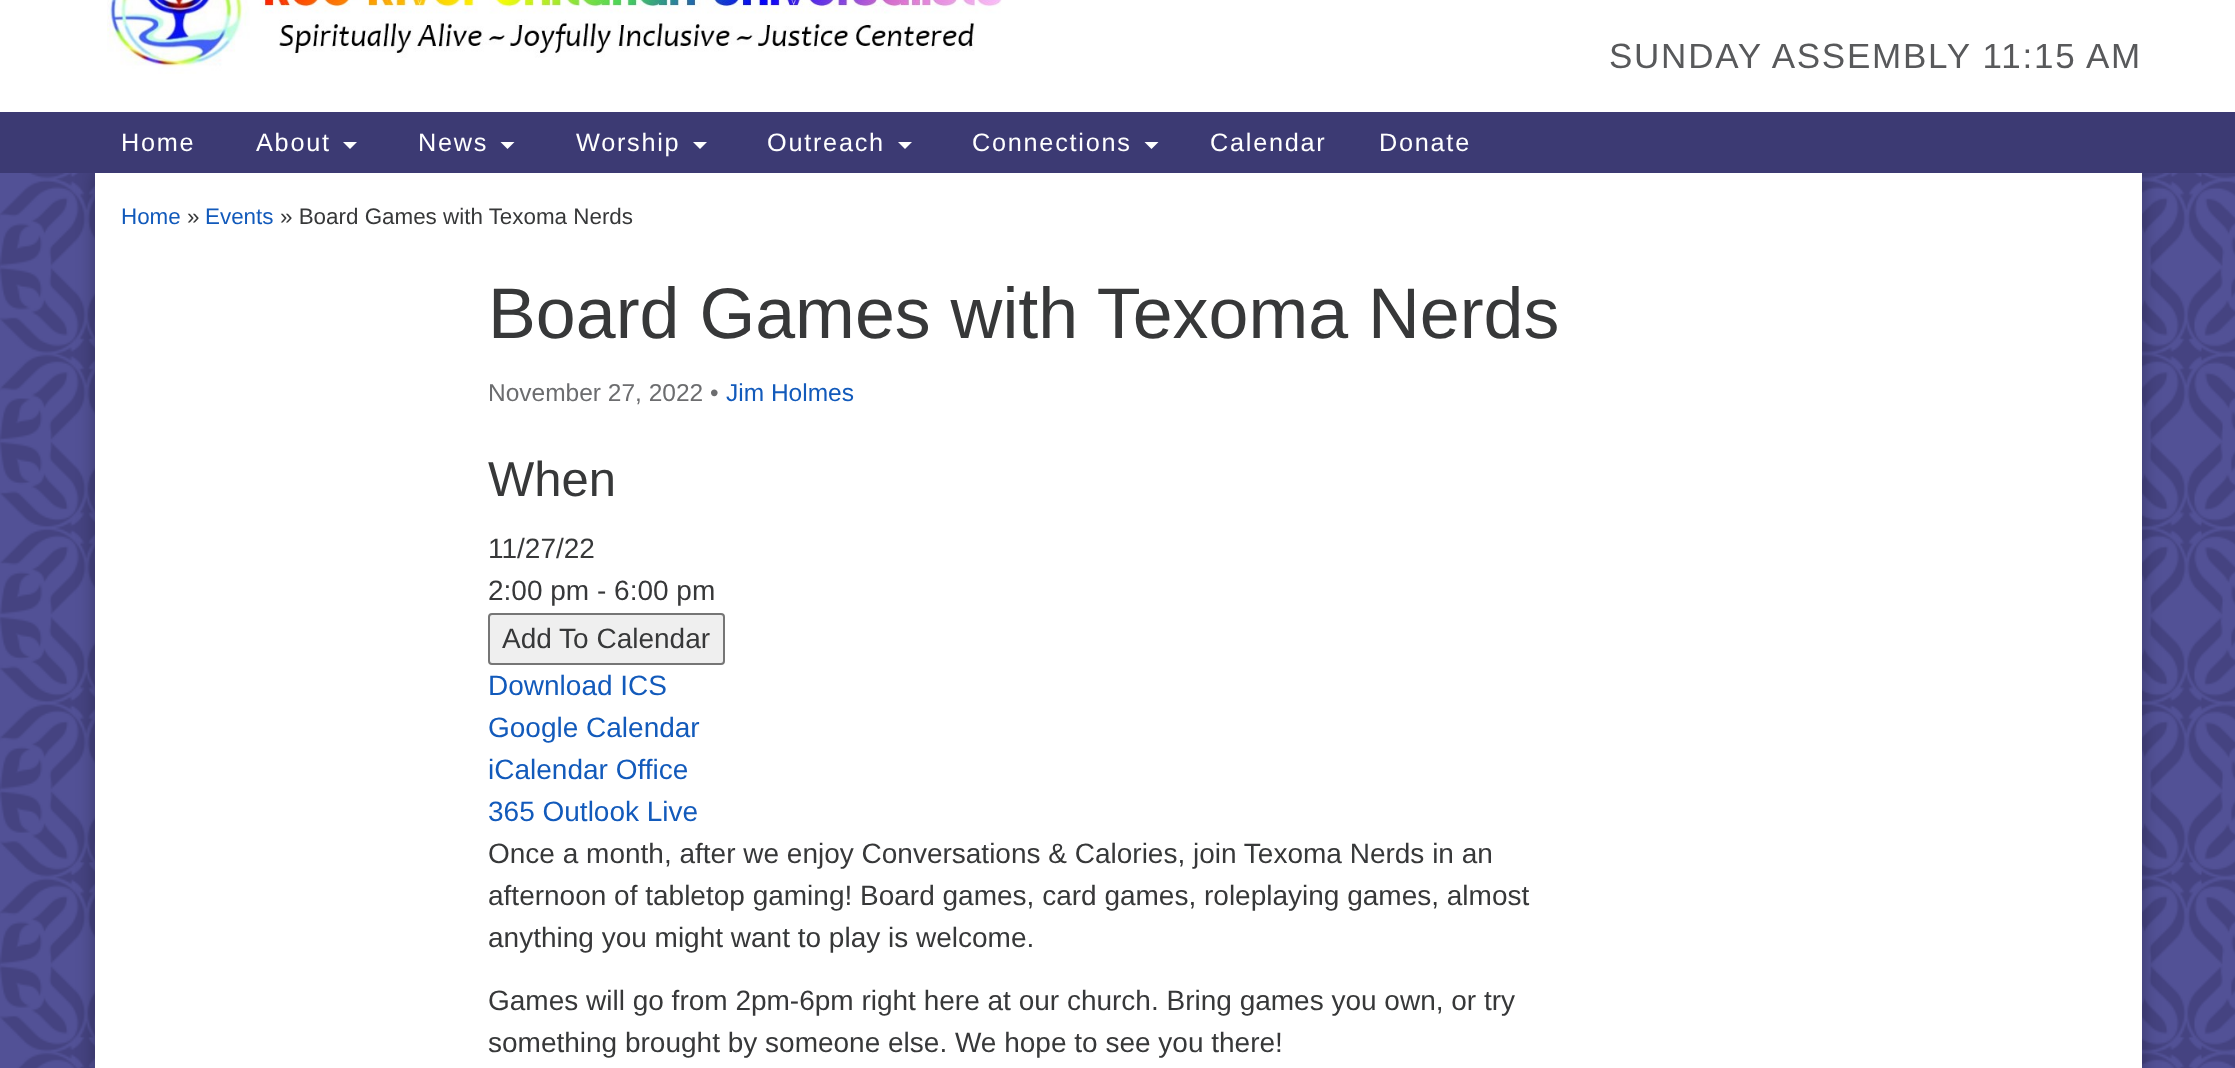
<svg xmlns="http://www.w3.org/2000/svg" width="2235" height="1068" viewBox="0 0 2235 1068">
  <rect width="100%" height="100%" fill="rgb(255,255,255)"/>
  <image x="0" y="173" width="2235" height="895" href="pic1.png"/>
  <image x="107" y="0" width="895" height="74" href="pic2.png"/>
  <text x="1609" y="68" font-family="Liberation Sans" font-size="35" letter-spacing="1.75" fill="rgb(88,89,91)">SUNDAY ASSEMBLY 11:15 AM</text>
  <rect x="95" y="173" width="2047" height="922" fill="rgba(0,0,0,0.3)" filter="blur(9px)"/>
  <rect x="0" y="112" width="2235" height="61" fill="rgb(60,58,115)"/>
  <g font-family="Liberation Sans" font-size="25.25" letter-spacing="1.75" fill="rgb(255,255,255)">
    <text x="121" y="151">Home</text>
    <text x="256" y="151">About</text>
  </g>
  <path d="M343 142H357L350 149Z" fill="rgb(255,255,255)"/>
  <text x="418" y="151" font-family="Liberation Sans" font-size="25.25" letter-spacing="1.75" fill="rgb(255,255,255)">News</text>
  <path d="M500.5 142H514.5L507.5 149Z" fill="rgb(255,255,255)"/>
  <text x="576" y="151" font-family="Liberation Sans" font-size="25.25" letter-spacing="1.75" fill="rgb(255,255,255)">Worship</text>
  <path d="M693 142H707L700 149Z" fill="rgb(255,255,255)"/>
  <text x="767" y="151" font-family="Liberation Sans" font-size="25.25" letter-spacing="1.75" fill="rgb(255,255,255)">Outreach</text>
  <path d="M898 142H912L905 149Z" fill="rgb(255,255,255)"/>
  <text x="972" y="151" font-family="Liberation Sans" font-size="25.25" letter-spacing="1.75" fill="rgb(255,255,255)">Connections</text>
  <path d="M1144.5 142H1158.5L1151.5 149Z" fill="rgb(255,255,255)"/>
  <g font-family="Liberation Sans" font-size="25.25" letter-spacing="1.75" fill="rgb(255,255,255)">
    <text x="1210" y="151">Calendar</text>
    <text x="1379" y="151">Donate</text>
  </g>
  <rect x="95" y="173" width="2047" height="895" fill="rgb(255,255,255)"/>
  <text x="121" y="224" font-family="Liberation Sans" font-size="22.4" fill="rgb(18,90,187)">Home</text>
  <text x="187" y="224" font-family="Liberation Sans" font-size="22.4" fill="rgb(55,56,57)">»</text>
  <text x="205" y="224" font-family="Liberation Sans" font-size="22.4" fill="rgb(18,90,187)">Events</text>
  <text x="280" y="224" font-family="Liberation Sans" font-size="22.4" fill="rgb(55,56,57)">» Board Games with Texoma Nerds</text>
  <text x="488" y="338" font-family="Liberation Sans" font-size="71.75" fill="rgb(55,56,57)">Board Games with Texoma Nerds</text>
  <text x="488" y="401" font-family="Liberation Sans" font-size="24.5" fill="rgb(108,109,111)">November 27, 2022 •</text>
  <text x="726" y="401" font-family="Liberation Sans" font-size="24.5" fill="rgb(18,90,187)">Jim Holmes</text>
  <text x="488" y="496" font-family="Liberation Sans" font-size="49" fill="rgb(55,56,57)">When</text>
  <g font-family="Liberation Sans" font-size="28" fill="rgb(55,56,57)">
    <text>
      <tspan x="488" y="558">11/27/22</tspan>
      <tspan x="488" y="600">2:00 pm - 6:00 pm</tspan>
    </text>
  </g>
  <rect x="489" y="614" width="235" height="50" rx="3" fill="rgb(239,239,239)" stroke="rgb(118,118,118)" stroke-width="2"/>
  <text x="502" y="648" font-family="Liberation Sans" font-size="28" fill="rgb(55,56,57)">Add To Calendar</text>
  <g font-family="Liberation Sans" font-size="28" fill="rgb(18,90,187)">
    <text>
      <tspan x="488" y="695">Download ICS</tspan>
      <tspan x="488" y="737">Google Calendar</tspan>
      <tspan x="488" y="779">iCalendar Office</tspan>
      <tspan x="488" y="821">365 Outlook Live</tspan>
    </text>
  </g>
  <g font-family="Liberation Sans" font-size="28" fill="rgb(55,56,57)">
    <text>
      <tspan x="488" y="863">Once a month, after we enjoy Conversations &amp; Calories, join Texoma Nerds in an</tspan>
      <tspan x="488" y="905">afternoon of tabletop gaming! Board games, card games, roleplaying games, almost</tspan>
      <tspan x="488" y="947">anything you might want to play is welcome.</tspan>
    </text>
    <text>
      <tspan x="488" y="1010">Games will go from 2pm-6pm right here at our church. Bring games you own, or try</tspan>
      <tspan x="488" y="1052">something brought by someone else. We hope to see you there!</tspan>
    </text>
  </g>
</svg>
